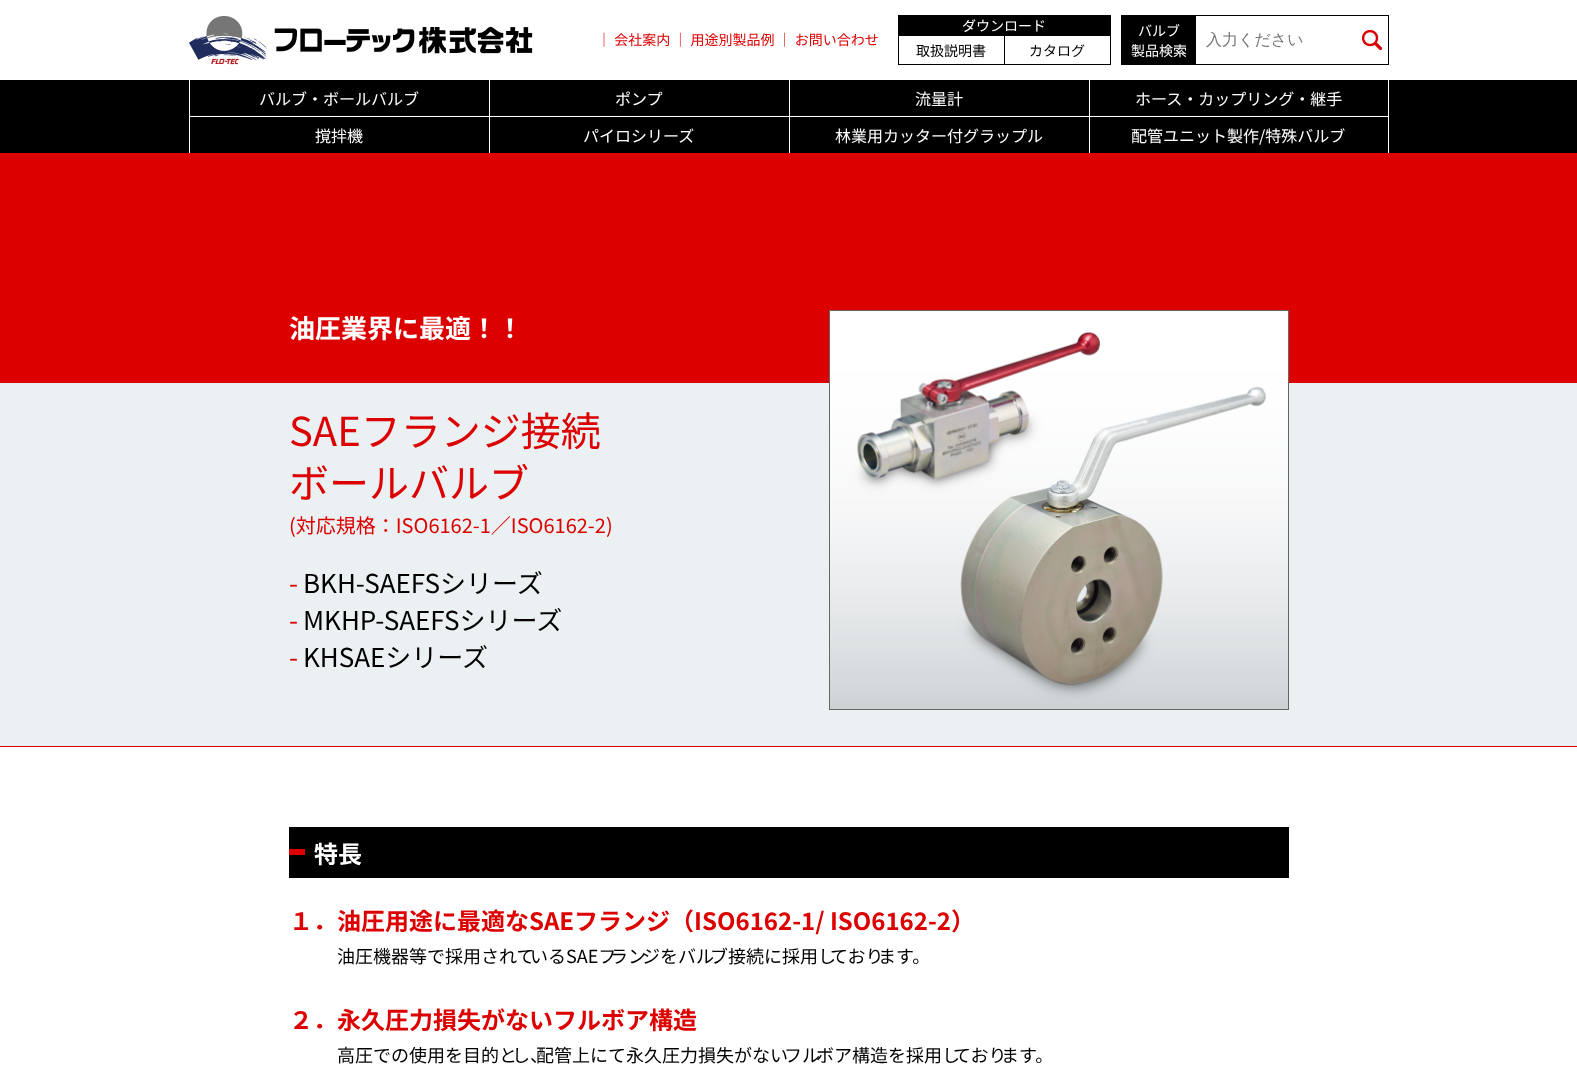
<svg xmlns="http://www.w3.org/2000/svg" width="1577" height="1084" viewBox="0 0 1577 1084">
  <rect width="100%" height="100%" fill="rgb(255,255,255)"/>
  <image x="189" y="16" width="344" height="49" href="pic1.png"/>
  <text x="597" y="45" font-family="Noto Sans JP" font-size="14" fill="rgb(220,0,0)">｜ 会社案内 ｜ 用途別製品例 ｜ お問い合わせ</text>
  <rect x="1110" y="15" width="1" height="50" fill="rgb(0,0,0)"/>
  <rect x="898" y="15" width="212" height="21" fill="rgb(0,0,0)"/>
  <text x="962" y="31" font-family="Noto Sans JP" font-size="14" fill="rgb(255,255,255)">ダウンロード</text>
  <rect x="898" y="64" width="212" height="1" fill="rgb(0,0,0)"/>
  <rect x="898" y="36" width="1" height="29" fill="rgb(0,0,0)"/>
  <text x="916" y="56" font-family="Noto Sans JP" font-size="14" fill="rgb(0,0,0)">取扱説明書</text>
  <rect x="1004" y="36" width="1" height="29" fill="rgb(0,0,0)"/>
  <text x="1029" y="56" font-family="Noto Sans JP" font-size="14" fill="rgb(0,0,0)">カタログ</text>
  <rect x="1121.5" y="15.5" width="267" height="49" fill="none" stroke="rgb(0,0,0)"/>
  <rect x="1122" y="16" width="74" height="48" fill="rgb(0,0,0)"/>
  <g font-family="Noto Sans JP" font-size="14" fill="rgb(255,255,255)">
    <text x="1138" y="36">バルブ</text>
    <text x="1131" y="56">製品検索</text>
  </g>
  <text x="1206" y="45" font-family="WenQuanYi Zen Hei" font-size="16" font-weight="500" fill="rgb(117,117,117)">入力ください</text>
  <image x="1362" y="30" width="20" height="20" href="pic2.png"/>
  <rect x="0" y="80" width="1577" height="73" fill="rgb(0,0,0)"/>
  <rect x="189" y="116" width="900" height="1" fill="rgb(255,255,255)"/>
  <rect x="189" y="80" width="1" height="73" fill="rgb(255,255,255)"/>
  <text x="259" y="105" font-family="Noto Sans JP" font-size="16" fill="rgb(255,255,255)">バルブ・ボールバルブ</text>
  <rect x="489" y="80" width="1" height="73" fill="rgb(255,255,255)"/>
  <text x="615" y="105" font-family="Noto Sans JP" font-size="16" fill="rgb(255,255,255)">ポンプ</text>
  <rect x="789" y="80" width="1" height="73" fill="rgb(255,255,255)"/>
  <text x="915" y="105" font-family="Noto Sans JP" font-size="16" fill="rgb(255,255,255)">流量計</text>
  <rect x="1388" y="80" width="1" height="73" fill="rgb(255,255,255)"/>
  <rect x="1089" y="116" width="300" height="1" fill="rgb(255,255,255)"/>
  <rect x="1089" y="80" width="1" height="73" fill="rgb(255,255,255)"/>
  <g font-family="Noto Sans JP" font-size="16" fill="rgb(255,255,255)">
    <text x="1135" y="105">ホース・カップリング・継手</text>
    <text x="315" y="142">撹拌機</text>
    <text x="583" y="142">パイロシリーズ</text>
    <text x="835" y="142">林業用カッター付グラップル</text>
    <text x="1131" y="142">配管ユニット製作/特殊バルブ</text>
  </g>
  <rect x="0" y="153" width="1577" height="230" fill="rgb(220,0,0)"/>
  <text x="289" y="338" font-family="Noto Sans JP" font-size="26" font-weight="bold" fill="rgb(255,255,255)">油圧業界に最適！！</text>
  <rect x="0" y="383" width="1577" height="363" fill="rgb(235,240,243)"/>
  <image x="830" y="311" width="458" height="398" href="pic3.png"/>
  <rect x="829.5" y="310.5" width="459" height="399" fill="none" stroke="rgb(102,102,102)"/>
  <rect x="0" y="746" width="1577" height="1" fill="rgb(220,0,0)"/>
  <g font-family="Noto Sans JP" font-size="40" fill="rgb(220,0,0)">
    <text>
      <tspan x="289" y="446">SAEフランジ接続</tspan>
      <tspan x="289" y="498">ボールバルブ</tspan>
    </text>
  </g>
  <text x="289" y="533" font-family="Noto Sans JP" font-size="20" fill="rgb(220,0,0)">(対応規格：ISO6162-1／ISO6162-2)</text>
  <text x="289" y="593" font-family="Noto Sans JP" font-size="26" fill="rgb(220,0,0)">-</text>
  <text x="303" y="593" font-family="Noto Sans JP" font-size="26" fill="rgb(0,0,0)">BKH-SAEFSシリーズ</text>
  <text x="289" y="630" font-family="Noto Sans JP" font-size="26" fill="rgb(220,0,0)">-</text>
  <text x="303" y="630" font-family="Noto Sans JP" font-size="26" fill="rgb(0,0,0)">MKHP-SAEFSシリーズ</text>
  <text x="289" y="667" font-family="Noto Sans JP" font-size="26" fill="rgb(220,0,0)">-</text>
  <text x="303" y="667" font-family="Noto Sans JP" font-size="26" fill="rgb(0,0,0)">KHSAEシリーズ</text>
  <rect x="289" y="827" width="1000" height="51" fill="rgb(0,0,0)"/>
  <rect x="289" y="849" width="16" height="6" fill="rgb(220,0,0)"/>
  <text x="314" y="863" font-family="Noto Sans JP" font-size="24" font-weight="bold" fill="rgb(255,255,255)">特長</text>
  <text x="289" y="930" font-family="Noto Sans JP" font-size="24" font-weight="bold" fill="rgb(220,0,0)">１．油圧用途に最適なSAEフランジ（ISO6162-1/ ISO6162-2）</text>
  <text x="337" y="963" font-family="Noto Sans JP" font-size="18" fill="rgb(0,0,0)">油圧機器等で採用されて</text>
  <text x="530" y="963" font-family="Noto Sans JP" font-size="18" fill="rgb(0,0,0)">いるSAEフ</text>
  <text x="610" y="963" font-family="Noto Sans JP" font-size="18" fill="rgb(0,0,0)">ラン</text>
  <text x="642" y="963" font-family="Noto Sans JP" font-size="18" fill="rgb(0,0,0)">ジをバル</text>
  <text x="710" y="963" font-family="Noto Sans JP" font-size="18" fill="rgb(0,0,0)">ブ接続に採用し</text>
  <text x="830" y="963" font-family="Noto Sans JP" font-size="18" fill="rgb(0,0,0)">ており</text>
  <text x="878" y="963" font-family="Noto Sans JP" font-size="18" fill="rgb(0,0,0)">ます。</text>
  <text x="289" y="1029" font-family="Noto Sans JP" font-size="24" font-weight="bold" fill="rgb(220,0,0)">２．永久圧力損失がないフルボア構造</text>
  <text x="337" y="1062" font-family="Noto Sans JP" font-size="18" fill="rgb(0,0,0)">高圧での使用を目的と</text>
  <text x="512" y="1062" font-family="Noto Sans JP" font-size="18" fill="rgb(0,0,0)">し、</text>
  <text x="536" y="1062" font-family="Noto Sans JP" font-size="18" fill="rgb(0,0,0)">配管上にて永久圧力損失がない</text>
  <text x="784" y="1062" font-family="Noto Sans JP" font-size="18" fill="rgb(0,0,0)">フル</text>
  <text x="816" y="1062" font-family="Noto Sans JP" font-size="18" fill="rgb(0,0,0)">ボア構造を採用し</text>
  <text x="953" y="1062" font-family="Noto Sans JP" font-size="18" fill="rgb(0,0,0)">ており</text>
  <text x="1001" y="1062" font-family="Noto Sans JP" font-size="18" fill="rgb(0,0,0)">ます。</text>
</svg>
